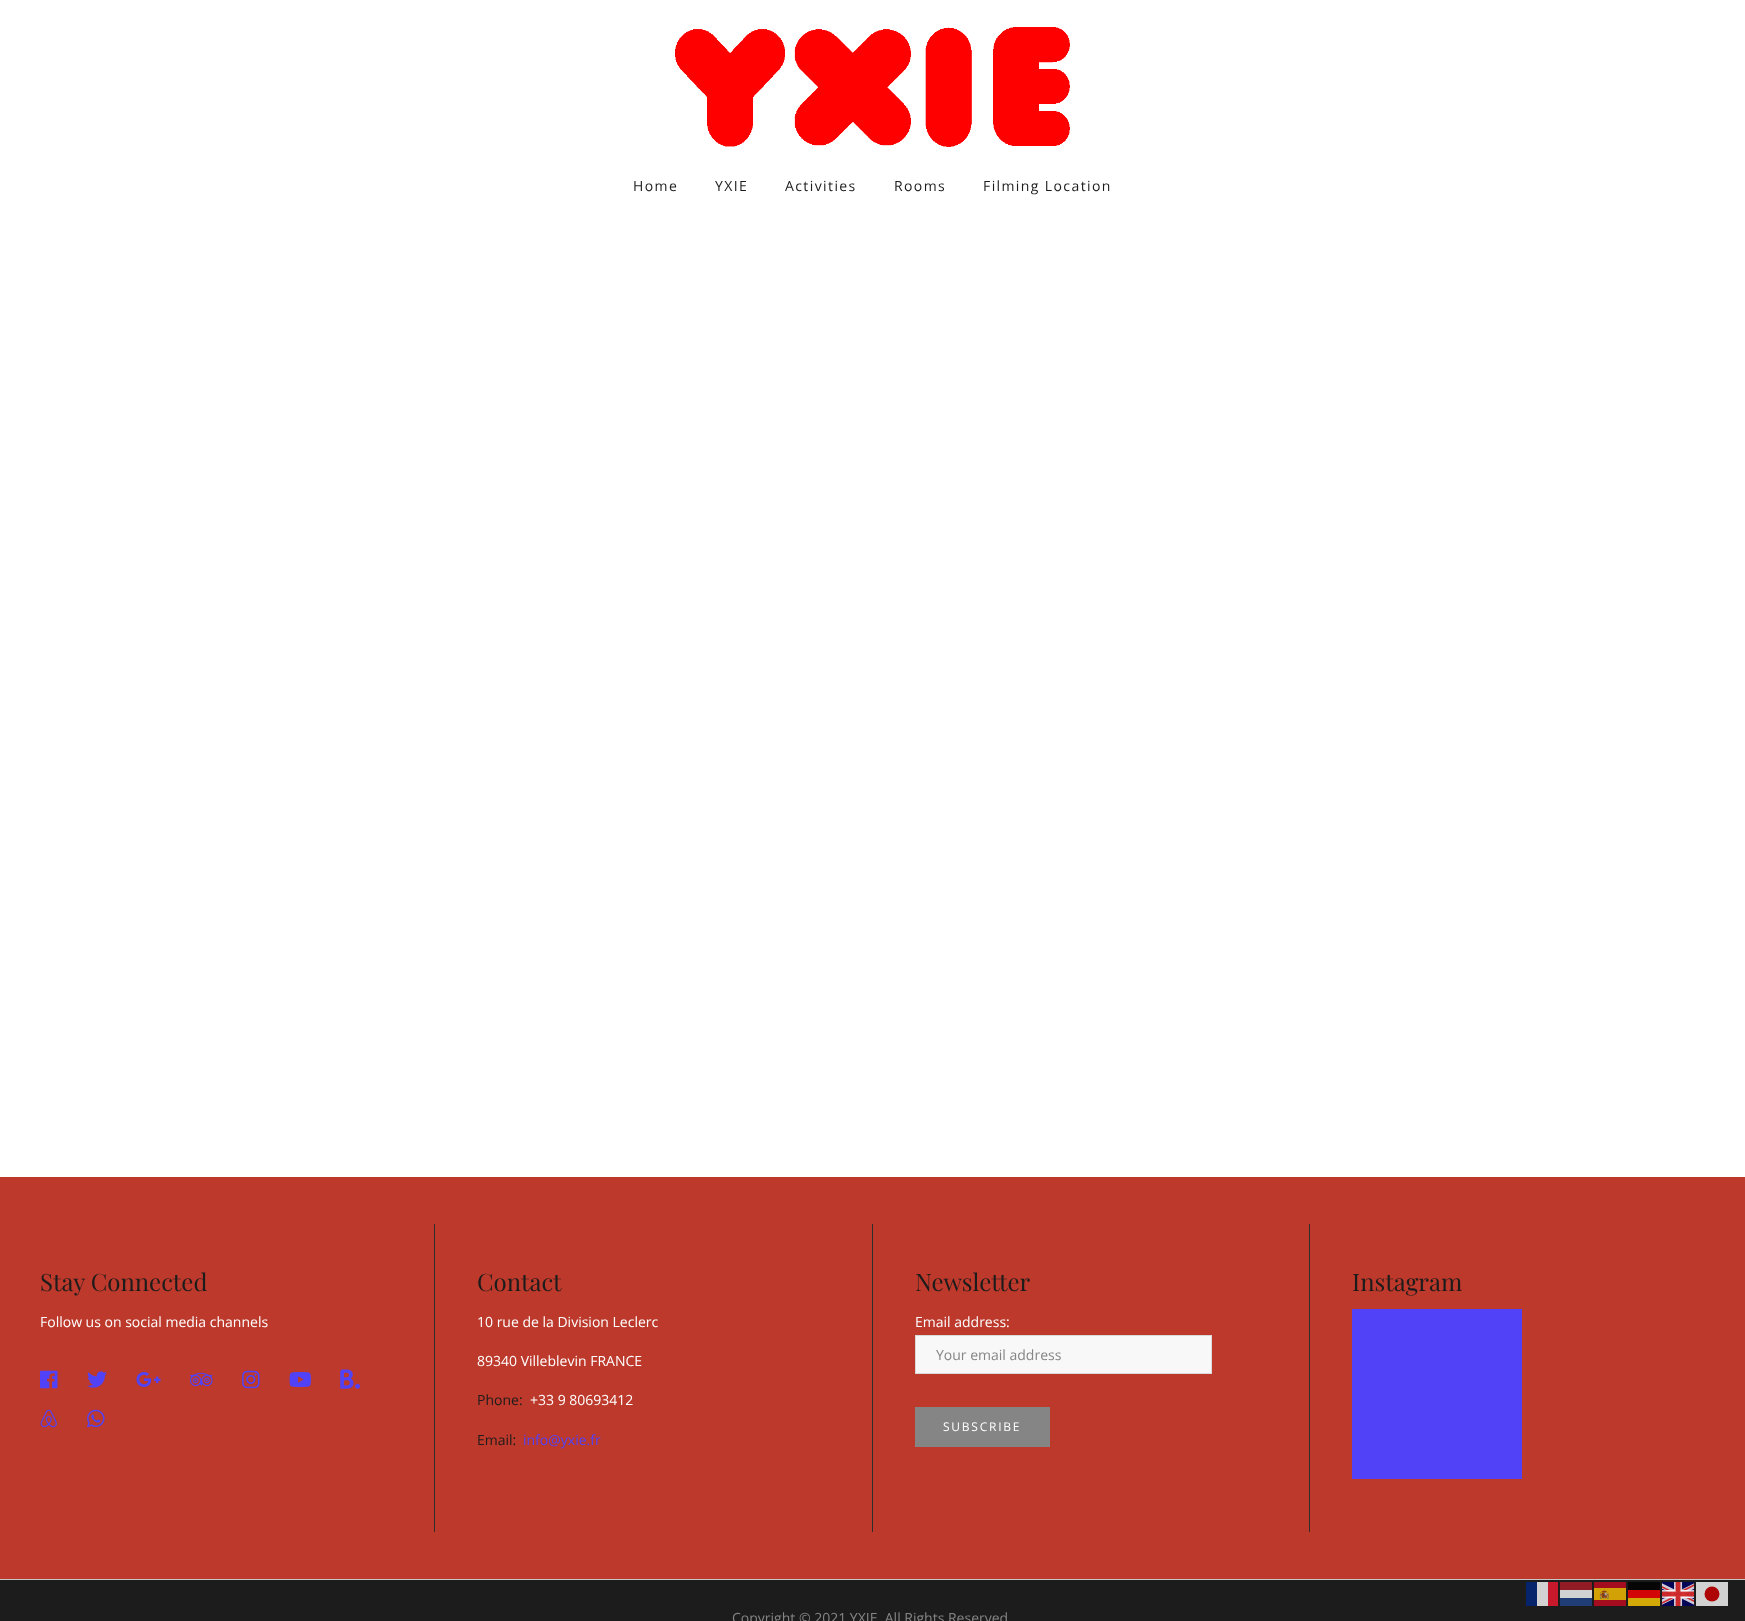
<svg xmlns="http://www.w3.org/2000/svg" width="1745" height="1621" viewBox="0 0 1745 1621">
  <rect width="100%" height="100%" fill="rgb(255,255,255)"/>
  <image x="675" y="27" width="395" height="120" href="pic1.png"/>
  <g font-family="Open Sans" font-size="14" letter-spacing="1.4" fill="rgb(28,28,28)">
    <text x="633" y="191">Home</text>
    <text x="715" y="191">YXIE</text>
    <text x="785" y="191">Activities</text>
    <text x="894" y="191">Rooms</text>
    <text x="983" y="191">Filming Location</text>
  </g>
  <rect x="0" y="1177" width="1745" height="402" fill="rgb(188,57,43)"/>
  <text x="40" y="1291" font-family="Playfair Display" font-size="24" fill="rgb(28,28,28)">Stay Connected</text>
  <text x="40" y="1327" font-family="Open Sans" font-size="14" fill="rgb(255,255,255)">Follow us on social media channels</text>
  <image x="40" y="1370" width="18" height="19" href="pic2.png"/>
  <image x="87" y="1371" width="20" height="17" href="pic3.png"/>
  <image x="136" y="1372" width="25" height="15" href="pic4.png"/>
  <image x="190" y="1372" width="23" height="15" href="pic5.png"/>
  <image x="242" y="1370" width="18" height="19" href="pic6.png"/>
  <image x="289" y="1372" width="22" height="15" href="pic7.png"/>
  <image x="340" y="1369" width="20" height="20" href="pic8.png"/>
  <image x="40" y="1409" width="17" height="19" href="pic9.png"/>
  <image x="87" y="1409" width="18" height="19" href="pic10.png"/>
  <rect x="434" y="1224" width="1" height="308" fill="rgb(46,46,46)"/>
  <text x="477" y="1291" font-family="Playfair Display" font-size="24" fill="rgb(28,28,28)">Contact</text>
  <g font-family="Open Sans" font-size="14" fill="rgb(255,255,255)">
    <text x="477" y="1327">10 rue de la Division Leclerc</text>
    <text x="477" y="1366">89340 Villeblevin FRANCE</text>
  </g>
  <text x="477" y="1405" font-family="Open Sans" font-size="14" fill="rgb(28,28,28)">Phone:</text>
  <text x="530" y="1405" font-family="Open Sans" font-size="14" fill="rgb(255,255,255)">+33 9 80693412</text>
  <text x="477" y="1445" font-family="Open Sans" font-size="14" fill="rgb(28,28,28)">Email:</text>
  <text x="523" y="1445" font-family="Open Sans" font-size="14" fill="rgb(81,66,247)">info@yxie.fr</text>
  <rect x="872" y="1224" width="1" height="308" fill="rgb(46,46,46)"/>
  <text x="915" y="1291" font-family="Playfair Display" font-size="24" fill="rgb(28,28,28)">Newsletter</text>
  <text x="915" y="1327" font-family="Open Sans" font-size="14" fill="rgb(255,255,255)">Email address:</text>
  <rect x="915.5" y="1335.5" width="296" height="38" fill="rgb(248,248,248)" stroke="rgb(218,218,218)"/>
  <text x="936" y="1360" font-family="Open Sans" font-size="14" fill="rgb(133,133,133)">Your email address</text>
  <rect x="915" y="1407" width="135" height="40" fill="rgb(133,133,133)"/>
  <text x="943" y="1431" font-family="Open Sans" font-size="12" letter-spacing="1.75" fill="rgb(255,255,255)">SUBSCRIBE</text>
  <rect x="1309" y="1224" width="1" height="308" fill="rgb(46,46,46)"/>
  <text x="1352" y="1291" font-family="Playfair Display" font-size="24" fill="rgb(28,28,28)">Instagram</text>
  <rect x="1352" y="1309" width="170" height="170" fill="rgb(81,66,247)"/>
  <rect x="0" y="1580" width="1745" height="41" fill="rgb(28,28,28)"/>
  <rect x="0" y="1579" width="1745" height="1" fill="rgb(198,198,198)"/>
  <text x="732" y="1623" font-family="Open Sans" font-size="14" fill="rgb(133,133,133)">Copyright © 2021 YXIE. All Rights Reserved</text>
  <rect x="1526" y="1582" width="11" height="24" fill="rgb(6,36,107)"/>
  <rect x="1537" y="1582" width="11" height="24" fill="rgb(210,210,210)"/>
  <rect x="1548" y="1582" width="10" height="24" fill="rgb(200,25,44)"/>
  <rect x="1560" y="1582" width="32" height="8" fill="rgb(145,28,38)"/>
  <image x="1594" y="1582" width="32" height="24" href="pic11.png"/>
  <rect x="1628" y="1582" width="32" height="8" fill="rgb(6,6,6)"/>
  <image x="1662" y="1582" width="32" height="24" href="pic12.png"/>
  <rect x="1696" y="1582" width="32" height="24" fill="rgb(210,210,210)"/>
  <rect x="1560" y="1590" width="32" height="8" fill="rgb(210,210,210)"/>
  <rect x="1628" y="1590" width="32" height="8" fill="rgb(210,6,6)"/>
  <circle cx="1712" cy="1594" r="7.5" fill="rgb(174,6,6)"/>
  <rect x="1560" y="1598" width="32" height="8" fill="rgb(32,62,117)"/>
  <rect x="1628" y="1598" width="32" height="8" fill="rgb(210,169,6)"/>
</svg>
